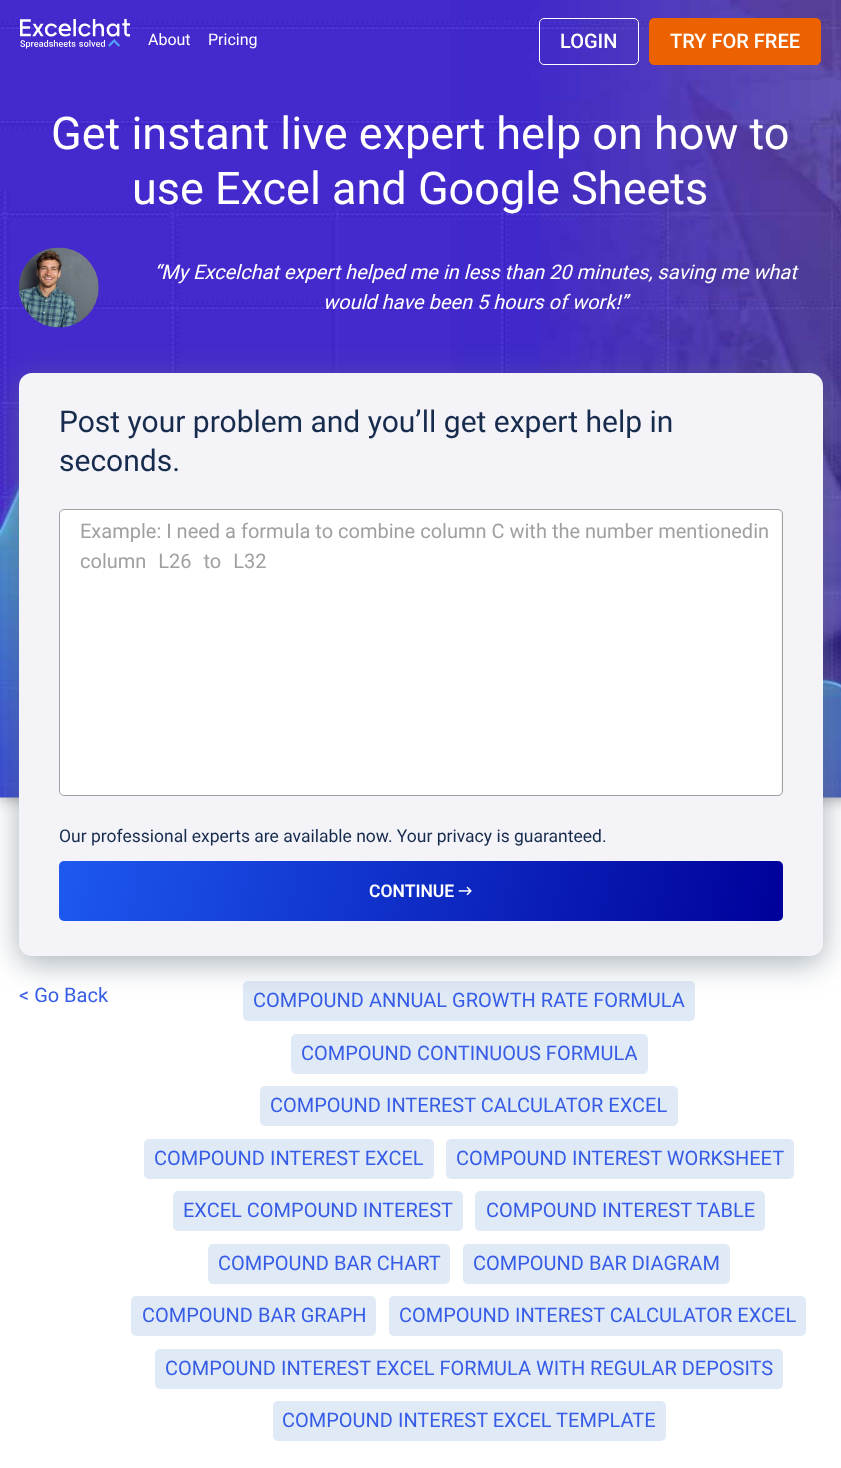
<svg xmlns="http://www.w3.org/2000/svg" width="841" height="1468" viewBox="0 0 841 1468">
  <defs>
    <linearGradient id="g1" gradientUnits="userSpaceOnUse" x1="70" y1="810" x2="771" y2="972"><stop offset="0" stop-color="rgb(29,89,240)"/><stop offset="1" stop-color="rgb(0,0,154)"/></linearGradient>
  </defs>
  <rect width="100%" height="100%" fill="rgb(255,255,255)"/>
  <rect x="0" y="0" width="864" height="798" fill="rgba(0,0,0,0.4)" filter="blur(7.5px)"/>
  <image x="0" y="0" width="841" height="798" href="pic1.png"/>
  <image x="20" y="19" width="110" height="30" href="pic2.png"/>
  <g font-family="Roboto" font-size="16" fill="rgb(255,255,255)">
    <text x="148" y="45">About</text>
    <text x="208" y="45">Pricing</text>
  </g>
  <rect x="539.5" y="18.5" width="99" height="46" rx="4.5" fill="none" stroke="rgb(255,255,255)"/>
  <text x="560" y="48" font-family="Roboto" font-size="20" font-weight="500" fill="rgb(255,255,255)">LOGIN</text>
  <rect x="649.5" y="18.5" width="171" height="46" rx="4.5" fill="rgb(237,98,0)" stroke="rgb(237,98,0)"/>
  <text x="670" y="48" font-family="Roboto" font-size="20" font-weight="500" fill="rgb(255,255,255)">TRY FOR FREE</text>
  <g font-family="Roboto" font-size="45" fill="rgb(255,255,255)">
    <text x="51" y="149">Get instant live expert help on how to</text>
    <text x="132" y="204">use Excel and Google Sheets</text>
  </g>
  <image x="18" y="247" width="81" height="81" href="pic3.png"/>
  <g font-family="Roboto" font-size="20" font-style="italic" fill="rgb(255,255,255)">
    <text x="154" y="279">“My Excelchat expert helped me in less than 20 minutes, saving me what</text>
    <text x="323" y="309">would have been 5 hours of work!”</text>
  </g>
  <rect x="243" y="981" width="452" height="40" rx="5" fill="rgb(224,234,246)"/>
  <rect x="19" y="379" width="804" height="584" rx="13" fill="rgba(99,115,129,0.55)" filter="blur(15.5px)"/>
  <rect x="19" y="373" width="804" height="583" rx="13" fill="rgb(243,243,248)"/>
  <g font-family="Roboto" font-size="30" fill="rgb(23,43,77)">
    <text>
      <tspan x="59" y="432">Post your problem and you’ll get expert help in</tspan>
      <tspan x="59" y="471">seconds.</tspan>
    </text>
  </g>
  <rect x="60" y="510" width="721" height="285" rx="4" fill="rgb(255,255,255)"/>
  <rect x="59.5" y="509.5" width="723" height="286" rx="4.5" fill="none" stroke="rgb(160,160,160)"/>
  <g font-family="Roboto" font-size="20" fill="rgb(160,160,160)">
    <text>
      <tspan x="80" y="538">Example: I need a formula to combine column C with the number mentionedin</tspan>
      <tspan x="80" y="568" word-spacing="7">column L26 to L32</tspan>
    </text>
  </g>
  <text x="59" y="842" font-family="Roboto" font-size="17.5" fill="rgb(23,43,77)">Our professional experts are available now. Your privacy is guaranteed.</text>
  <rect x="59" y="861" width="724" height="60" rx="5" fill="url(#g1)"/>
  <text x="369" y="897" font-family="Roboto" font-size="17.5" font-weight="600" fill="rgb(255,255,255)">CONTINUE</text>
  <image x="458" y="886" width="14" height="10" href="pic4.png"/>
  <g font-family="Roboto" font-size="20" fill="rgb(55,93,231)">
    <text x="19" y="1002">&lt; Go Back</text>
    <text x="253" y="1007">COMPOUND ANNUAL GROWTH RATE FORMULA</text>
  </g>
  <rect x="291" y="1034" width="357" height="40" rx="5" fill="rgb(224,234,246)"/>
  <text x="301" y="1060" font-family="Roboto" font-size="20" fill="rgb(55,93,231)">COMPOUND CONTINUOUS FORMULA</text>
  <rect x="260" y="1086" width="418" height="40" rx="5" fill="rgb(224,234,246)"/>
  <text x="270" y="1112" font-family="Roboto" font-size="20" fill="rgb(55,93,231)">COMPOUND INTEREST CALCULATOR EXCEL</text>
  <rect x="144" y="1139" width="290" height="40" rx="5" fill="rgb(224,234,246)"/>
  <text x="154" y="1165" font-family="Roboto" font-size="20" fill="rgb(55,93,231)">COMPOUND INTEREST EXCEL</text>
  <rect x="446" y="1139" width="348" height="40" rx="5" fill="rgb(224,234,246)"/>
  <text x="456" y="1165" font-family="Roboto" font-size="20" fill="rgb(55,93,231)">COMPOUND INTEREST WORKSHEET</text>
  <rect x="173" y="1191" width="290" height="40" rx="5" fill="rgb(224,234,246)"/>
  <text x="183" y="1217" font-family="Roboto" font-size="20" fill="rgb(55,93,231)">EXCEL COMPOUND INTEREST</text>
  <rect x="475" y="1191" width="290" height="40" rx="5" fill="rgb(224,234,246)"/>
  <text x="486" y="1217" font-family="Roboto" font-size="20" fill="rgb(55,93,231)">COMPOUND INTEREST TABLE</text>
  <rect x="208" y="1244" width="242" height="40" rx="5" fill="rgb(224,234,246)"/>
  <text x="218" y="1270" font-family="Roboto" font-size="20" fill="rgb(55,93,231)">COMPOUND BAR CHART</text>
  <rect x="463" y="1244" width="267" height="40" rx="5" fill="rgb(224,234,246)"/>
  <text x="473" y="1270" font-family="Roboto" font-size="20" fill="rgb(55,93,231)">COMPOUND BAR DIAGRAM</text>
  <rect x="131" y="1296" width="245" height="40" rx="5" fill="rgb(224,234,246)"/>
  <text x="142" y="1322" font-family="Roboto" font-size="20" fill="rgb(55,93,231)">COMPOUND BAR GRAPH</text>
  <rect x="389" y="1296" width="417" height="40" rx="5" fill="rgb(224,234,246)"/>
  <text x="399" y="1322" font-family="Roboto" font-size="20" fill="rgb(55,93,231)">COMPOUND INTEREST CALCULATOR EXCEL</text>
  <rect x="155" y="1349" width="628" height="40" rx="5" fill="rgb(224,234,246)"/>
  <text x="165" y="1375" font-family="Roboto" font-size="20" fill="rgb(55,93,231)">COMPOUND INTEREST EXCEL FORMULA WITH REGULAR DEPOSITS</text>
  <rect x="273" y="1401" width="393" height="40" rx="5" fill="rgb(224,234,246)"/>
  <text x="282" y="1427" font-family="Roboto" font-size="20" fill="rgb(55,93,231)">COMPOUND INTEREST EXCEL TEMPLATE</text>
</svg>
